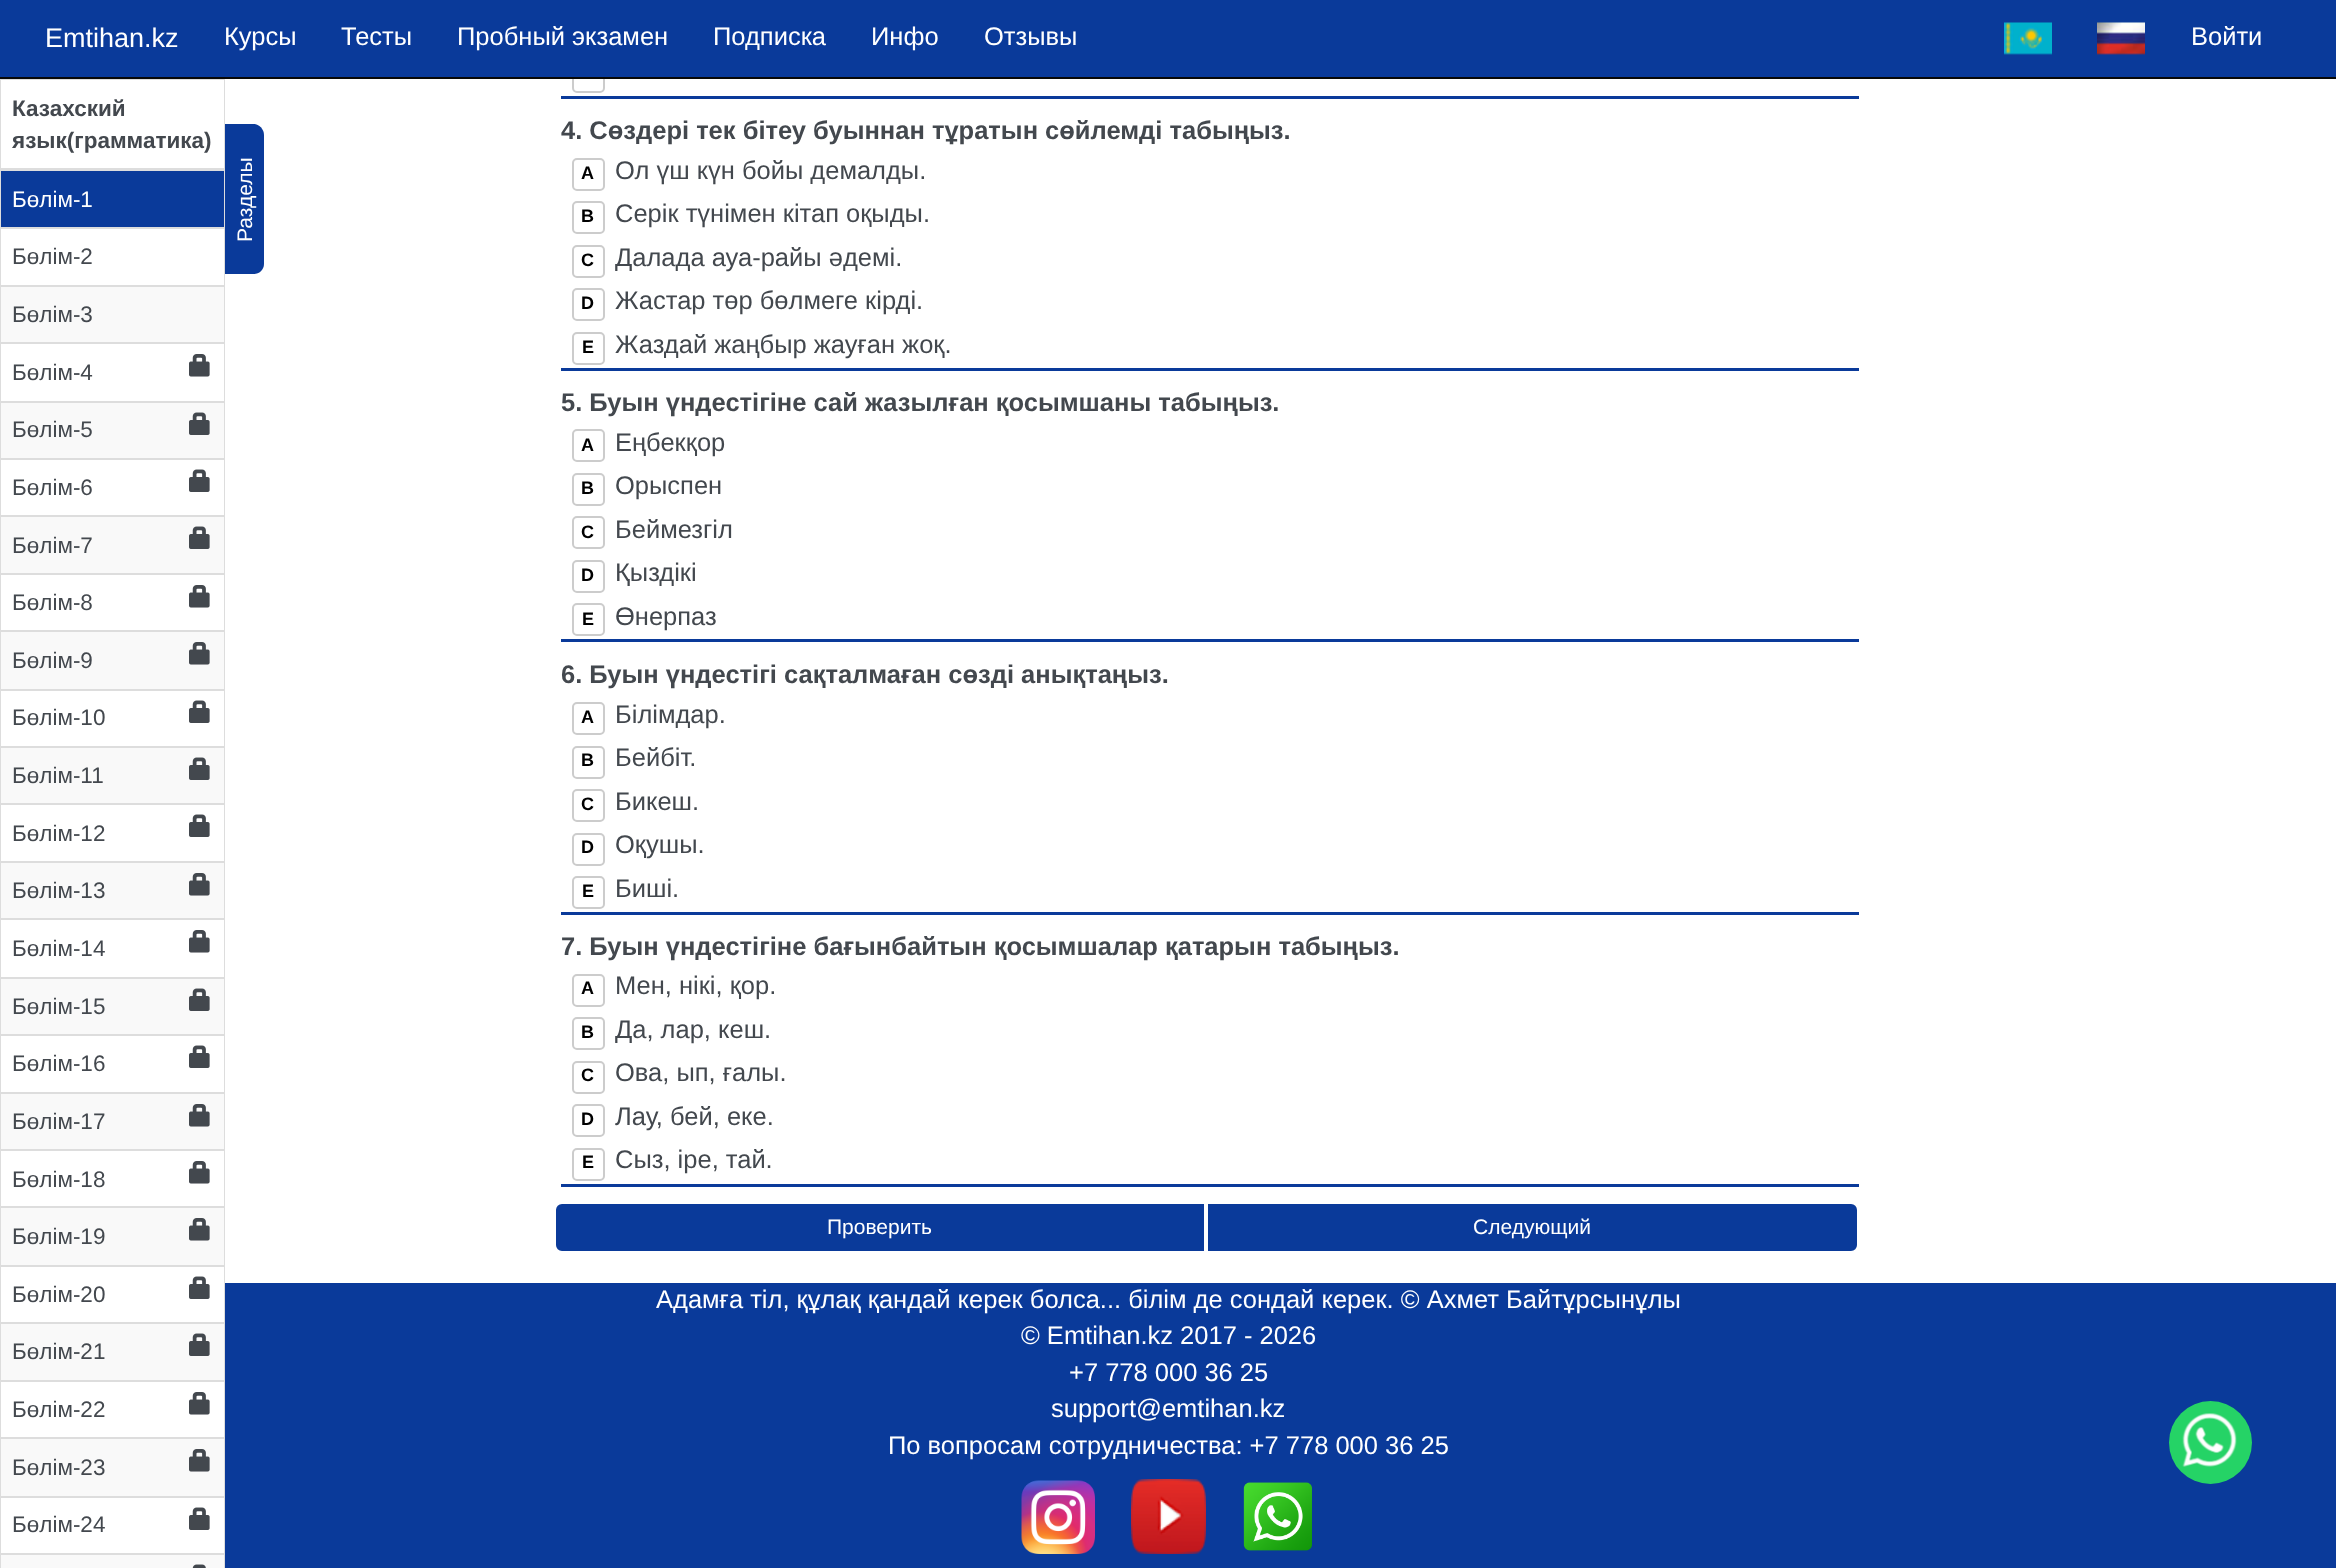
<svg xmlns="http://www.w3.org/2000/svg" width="2336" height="1568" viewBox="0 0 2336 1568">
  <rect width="100%" height="100%" fill="rgb(255,255,255)"/>
  <rect x="573" y="61" width="31" height="31" rx="4" fill="none" stroke="rgb(204,204,204)" stroke-width="2"/>
  <rect x="0" y="0" width="2336" height="77" fill="rgb(10,58,154)"/>
  <rect x="0" y="79" width="225" height="1" fill="rgb(221,221,221)"/>
  <rect x="224" y="78" width="1" height="1490" fill="rgb(221,221,221)"/>
  <rect x="0" y="78" width="1" height="1490" fill="rgb(221,221,221)"/>
  <rect x="0" y="77" width="2336" height="2" fill="rgb(8,8,8)"/>
  <text x="45" y="47" font-family="Liberation Sans" font-size="27" fill="rgb(255,255,255)">Emtihan.kz</text>
  <g font-family="Liberation Sans" font-size="25.5" fill="rgb(255,255,255)">
    <text x="224" y="45">Курсы</text>
    <text x="341" y="45">Тесты</text>
    <text x="457" y="45">Пробный экзамен</text>
    <text x="713" y="45">Подпискa</text>
    <text x="871" y="45">Инфо</text>
    <text x="984" y="45">Отзывы</text>
  </g>
  <image x="2004" y="22" width="48" height="33" href="pic1.png"/>
  <image x="2097" y="22" width="48" height="33" href="pic2.png"/>
  <text x="2191" y="45" font-family="Liberation Sans" font-size="25.5" fill="rgb(255,255,255)">Войти</text>
  <rect x="0" y="168" width="225" height="3" fill="rgb(221,221,221)"/>
  <g font-family="Liberation Sans" font-size="22.5" font-weight="bold" fill="rgb(67,72,78)">
    <text>
      <tspan x="12" y="116">Казахский</tspan>
      <tspan x="12" y="148">язык(грамматика)</tspan>
    </text>
  </g>
  <rect x="1" y="171" width="223" height="56" fill="rgb(10,58,154)"/>
  <text x="12" y="207" font-family="Liberation Sans" font-size="22.5" fill="rgb(255,255,255)">Бөлiм-1</text>
  <rect x="0" y="227" width="225" height="2" fill="rgb(221,221,221)"/>
  <text x="12" y="264" font-family="Liberation Sans" font-size="22.5" fill="rgb(67,72,78)">Бөлiм-2</text>
  <rect x="1" y="287" width="223" height="55" fill="rgb(249,249,249)"/>
  <rect x="0" y="285" width="225" height="2" fill="rgb(221,221,221)"/>
  <text x="12" y="322" font-family="Liberation Sans" font-size="22.5" fill="rgb(67,72,78)">Бөлiм-3</text>
  <rect x="0" y="342" width="225" height="2" fill="rgb(221,221,221)"/>
  <text x="12" y="380" font-family="Liberation Sans" font-size="22.5" fill="rgb(67,72,78)">Бөлiм-4</text>
  <image x="189" y="354" width="21" height="23" href="pic3.png"/>
  <rect x="1" y="403" width="223" height="55" fill="rgb(249,249,249)"/>
  <rect x="0" y="401" width="225" height="2" fill="rgb(221,221,221)"/>
  <text x="12" y="437" font-family="Liberation Sans" font-size="22.5" fill="rgb(67,72,78)">Бөлiм-5</text>
  <image x="189" y="412" width="21" height="23" href="pic4.png"/>
  <rect x="0" y="458" width="225" height="2" fill="rgb(221,221,221)"/>
  <text x="12" y="495" font-family="Liberation Sans" font-size="22.5" fill="rgb(67,72,78)">Бөлiм-6</text>
  <image x="189" y="469" width="21" height="23" href="pic5.png"/>
  <rect x="1" y="517" width="223" height="56" fill="rgb(249,249,249)"/>
  <rect x="0" y="515" width="225" height="2" fill="rgb(221,221,221)"/>
  <text x="12" y="553" font-family="Liberation Sans" font-size="22.5" fill="rgb(67,72,78)">Бөлiм-7</text>
  <image x="189" y="526" width="21" height="23" href="pic4.png"/>
  <rect x="0" y="573" width="225" height="2" fill="rgb(221,221,221)"/>
  <text x="12" y="610" font-family="Liberation Sans" font-size="22.5" fill="rgb(67,72,78)">Бөлiм-8</text>
  <image x="189" y="585" width="21" height="23" href="pic3.png"/>
  <rect x="1" y="632" width="223" height="57" fill="rgb(249,249,249)"/>
  <rect x="0" y="630" width="225" height="2" fill="rgb(221,221,221)"/>
  <text x="12" y="668" font-family="Liberation Sans" font-size="22.5" fill="rgb(67,72,78)">Бөлiм-9</text>
  <image x="189" y="642" width="21" height="23" href="pic6.png"/>
  <rect x="0" y="689" width="225" height="2" fill="rgb(221,221,221)"/>
  <text x="12" y="725" font-family="Liberation Sans" font-size="22.5" fill="rgb(67,72,78)">Бөлiм-10</text>
  <image x="189" y="700" width="21" height="23" href="pic5.png"/>
  <rect x="1" y="748" width="223" height="55" fill="rgb(249,249,249)"/>
  <rect x="0" y="746" width="225" height="2" fill="rgb(221,221,221)"/>
  <text x="12" y="783" font-family="Liberation Sans" font-size="22.5" fill="rgb(67,72,78)">Бөлiм-11</text>
  <image x="189" y="757" width="21" height="23" href="pic4.png"/>
  <rect x="0" y="803" width="225" height="2" fill="rgb(221,221,221)"/>
  <text x="12" y="841" font-family="Liberation Sans" font-size="22.5" fill="rgb(67,72,78)">Бөлiм-12</text>
  <image x="189" y="814" width="21" height="23" href="pic5.png"/>
  <rect x="1" y="863" width="223" height="55" fill="rgb(249,249,249)"/>
  <rect x="0" y="861" width="225" height="2" fill="rgb(221,221,221)"/>
  <text x="12" y="898" font-family="Liberation Sans" font-size="22.5" fill="rgb(67,72,78)">Бөлiм-13</text>
  <image x="189" y="873" width="21" height="23" href="pic6.png"/>
  <rect x="0" y="918" width="225" height="2" fill="rgb(221,221,221)"/>
  <text x="12" y="956" font-family="Liberation Sans" font-size="22.5" fill="rgb(67,72,78)">Бөлiм-14</text>
  <image x="189" y="930" width="21" height="23" href="pic3.png"/>
  <rect x="1" y="979" width="223" height="55" fill="rgb(249,249,249)"/>
  <rect x="0" y="977" width="225" height="2" fill="rgb(221,221,221)"/>
  <text x="12" y="1014" font-family="Liberation Sans" font-size="22.5" fill="rgb(67,72,78)">Бөлiм-15</text>
  <image x="189" y="988" width="21" height="23" href="pic4.png"/>
  <rect x="0" y="1034" width="225" height="2" fill="rgb(221,221,221)"/>
  <text x="12" y="1071" font-family="Liberation Sans" font-size="22.5" fill="rgb(67,72,78)">Бөлiм-16</text>
  <image x="189" y="1045" width="21" height="23" href="pic5.png"/>
  <rect x="1" y="1094" width="223" height="55" fill="rgb(249,249,249)"/>
  <rect x="0" y="1092" width="225" height="2" fill="rgb(221,221,221)"/>
  <text x="12" y="1129" font-family="Liberation Sans" font-size="22.5" fill="rgb(67,72,78)">Бөлiм-17</text>
  <image x="189" y="1104" width="21" height="23" href="pic6.png"/>
  <rect x="0" y="1149" width="225" height="2" fill="rgb(221,221,221)"/>
  <text x="12" y="1187" font-family="Liberation Sans" font-size="22.5" fill="rgb(67,72,78)">Бөлiм-18</text>
  <image x="189" y="1161" width="21" height="23" href="pic3.png"/>
  <rect x="1" y="1208" width="223" height="57" fill="rgb(249,249,249)"/>
  <rect x="0" y="1206" width="225" height="2" fill="rgb(221,221,221)"/>
  <text x="12" y="1244" font-family="Liberation Sans" font-size="22.5" fill="rgb(67,72,78)">Бөлiм-19</text>
  <image x="189" y="1218" width="21" height="23" href="pic6.png"/>
  <rect x="0" y="1265" width="225" height="2" fill="rgb(221,221,221)"/>
  <text x="12" y="1302" font-family="Liberation Sans" font-size="22.5" fill="rgb(67,72,78)">Бөлiм-20</text>
  <image x="189" y="1276" width="21" height="23" href="pic5.png"/>
  <rect x="1" y="1324" width="223" height="56" fill="rgb(249,249,249)"/>
  <rect x="0" y="1322" width="225" height="2" fill="rgb(221,221,221)"/>
  <text x="12" y="1359" font-family="Liberation Sans" font-size="22.5" fill="rgb(67,72,78)">Бөлiм-21</text>
  <image x="189" y="1333" width="21" height="23" href="pic4.png"/>
  <rect x="0" y="1380" width="225" height="2" fill="rgb(221,221,221)"/>
  <text x="12" y="1417" font-family="Liberation Sans" font-size="22.5" fill="rgb(67,72,78)">Бөлiм-22</text>
  <image x="189" y="1392" width="21" height="23" href="pic3.png"/>
  <rect x="1" y="1439" width="223" height="57" fill="rgb(249,249,249)"/>
  <rect x="0" y="1437" width="225" height="2" fill="rgb(221,221,221)"/>
  <text x="12" y="1475" font-family="Liberation Sans" font-size="22.5" fill="rgb(67,72,78)">Бөлiм-23</text>
  <image x="189" y="1449" width="21" height="23" href="pic6.png"/>
  <rect x="0" y="1496" width="225" height="2" fill="rgb(221,221,221)"/>
  <text x="12" y="1532" font-family="Liberation Sans" font-size="22.5" fill="rgb(67,72,78)">Бөлiм-24</text>
  <image x="189" y="1507" width="21" height="23" href="pic5.png"/>
  <rect x="1" y="1555" width="223" height="13" fill="rgb(249,249,249)"/>
  <rect x="0" y="1553" width="225" height="2" fill="rgb(221,221,221)"/>
  <image x="192" y="1564" width="14" height="4" href="pic7.png"/>
  <path d="M225 274V124H254C259 124 264 129 264 135V264C264 270 259 274 254 274Z" fill="rgb(10,58,154)"/>
  <text x="252" y="242" transform="rotate(-90 252 242)" font-family="Liberation Sans" font-size="21" fill="rgb(255,255,255)">Разделы</text>
  <rect x="561" y="96" width="1298" height="3" fill="rgb(10,58,154)"/>
  <rect x="561" y="368" width="1298" height="3" fill="rgb(10,58,154)"/>
  <text x="561" y="139" font-family="Liberation Sans" font-size="25.5" font-weight="bold" fill="rgb(67,72,78)">4. Сөздері тек бітеу буыннан тұратын сөйлемді табыңыз.</text>
  <rect x="573" y="159" width="31" height="31" rx="4" fill="none" stroke="rgb(204,204,204)" stroke-width="2"/>
  <text x="581" y="179" font-family="Liberation Sans" font-size="18" font-weight="bold" fill="rgb(0,0,0)">A</text>
  <text x="615" y="179" font-family="Liberation Sans" font-size="25.5" fill="rgb(67,72,78)">Ол үш күн бойы демалды.</text>
  <rect x="573" y="202" width="31" height="31" rx="4" fill="none" stroke="rgb(204,204,204)" stroke-width="2"/>
  <text x="581" y="222" font-family="Liberation Sans" font-size="18" font-weight="bold" fill="rgb(0,0,0)">B</text>
  <text x="615" y="222" font-family="Liberation Sans" font-size="25.5" fill="rgb(67,72,78)">Серік түнімен кітап оқыды.</text>
  <rect x="573" y="246" width="31" height="31" rx="4" fill="none" stroke="rgb(204,204,204)" stroke-width="2"/>
  <text x="581" y="266" font-family="Liberation Sans" font-size="18" font-weight="bold" fill="rgb(0,0,0)">C</text>
  <text x="615" y="266" font-family="Liberation Sans" font-size="25.5" fill="rgb(67,72,78)">Далада ауа-райы әдемі.</text>
  <rect x="573" y="289" width="31" height="31" rx="4" fill="none" stroke="rgb(204,204,204)" stroke-width="2"/>
  <text x="581" y="309" font-family="Liberation Sans" font-size="18" font-weight="bold" fill="rgb(0,0,0)">D</text>
  <text x="615" y="309" font-family="Liberation Sans" font-size="25.5" fill="rgb(67,72,78)">Жастар төр бөлмеге кірді.</text>
  <rect x="573" y="333" width="31" height="31" rx="4" fill="none" stroke="rgb(204,204,204)" stroke-width="2"/>
  <text x="582" y="353" font-family="Liberation Sans" font-size="18" font-weight="bold" fill="rgb(0,0,0)">E</text>
  <text x="615" y="353" font-family="Liberation Sans" font-size="25.5" fill="rgb(67,72,78)">Жаздай жаңбыр жауған жоқ.</text>
  <rect x="561" y="639" width="1298" height="3" fill="rgb(10,58,154)"/>
  <text x="561" y="411" font-family="Liberation Sans" font-size="25.5" font-weight="bold" fill="rgb(67,72,78)">5. Буын үндестігіне сай жазылған қосымшаны табыңыз.</text>
  <rect x="573" y="430" width="31" height="31" rx="4" fill="none" stroke="rgb(204,204,204)" stroke-width="2"/>
  <text x="581" y="451" font-family="Liberation Sans" font-size="18" font-weight="bold" fill="rgb(0,0,0)">A</text>
  <text x="615" y="451" font-family="Liberation Sans" font-size="25.5" fill="rgb(67,72,78)">Еңбекқор</text>
  <rect x="573" y="474" width="31" height="31" rx="4" fill="none" stroke="rgb(204,204,204)" stroke-width="2"/>
  <text x="581" y="494" font-family="Liberation Sans" font-size="18" font-weight="bold" fill="rgb(0,0,0)">B</text>
  <text x="615" y="494" font-family="Liberation Sans" font-size="25.5" fill="rgb(67,72,78)">Орыспен</text>
  <rect x="573" y="517" width="31" height="31" rx="4" fill="none" stroke="rgb(204,204,204)" stroke-width="2"/>
  <text x="581" y="538" font-family="Liberation Sans" font-size="18" font-weight="bold" fill="rgb(0,0,0)">C</text>
  <text x="615" y="538" font-family="Liberation Sans" font-size="25.5" fill="rgb(67,72,78)">Беймезгіл</text>
  <rect x="573" y="561" width="31" height="31" rx="4" fill="none" stroke="rgb(204,204,204)" stroke-width="2"/>
  <text x="581" y="581" font-family="Liberation Sans" font-size="18" font-weight="bold" fill="rgb(0,0,0)">D</text>
  <text x="615" y="581" font-family="Liberation Sans" font-size="25.5" fill="rgb(67,72,78)">Қыздікі</text>
  <rect x="573" y="604" width="31" height="31" rx="4" fill="none" stroke="rgb(204,204,204)" stroke-width="2"/>
  <text x="582" y="625" font-family="Liberation Sans" font-size="18" font-weight="bold" fill="rgb(0,0,0)">E</text>
  <text x="615" y="625" font-family="Liberation Sans" font-size="25.5" fill="rgb(67,72,78)">Өнерпаз</text>
  <rect x="561" y="912" width="1298" height="3" fill="rgb(10,58,154)"/>
  <text x="561" y="683" font-family="Liberation Sans" font-size="25.5" font-weight="bold" fill="rgb(67,72,78)">6. Буын үндестігі сақталмаған сөзді анықтаңыз.</text>
  <rect x="573" y="703" width="31" height="31" rx="4" fill="none" stroke="rgb(204,204,204)" stroke-width="2"/>
  <text x="581" y="723" font-family="Liberation Sans" font-size="18" font-weight="bold" fill="rgb(0,0,0)">A</text>
  <text x="615" y="723" font-family="Liberation Sans" font-size="25.5" fill="rgb(67,72,78)">Білімдар.</text>
  <rect x="573" y="747" width="31" height="31" rx="4" fill="none" stroke="rgb(204,204,204)" stroke-width="2"/>
  <text x="581" y="766" font-family="Liberation Sans" font-size="18" font-weight="bold" fill="rgb(0,0,0)">B</text>
  <text x="615" y="766" font-family="Liberation Sans" font-size="25.5" fill="rgb(67,72,78)">Бейбіт.</text>
  <rect x="573" y="790" width="31" height="31" rx="4" fill="none" stroke="rgb(204,204,204)" stroke-width="2"/>
  <text x="581" y="810" font-family="Liberation Sans" font-size="18" font-weight="bold" fill="rgb(0,0,0)">C</text>
  <text x="615" y="810" font-family="Liberation Sans" font-size="25.5" fill="rgb(67,72,78)">Бикеш.</text>
  <rect x="573" y="834" width="31" height="31" rx="4" fill="none" stroke="rgb(204,204,204)" stroke-width="2"/>
  <text x="581" y="853" font-family="Liberation Sans" font-size="18" font-weight="bold" fill="rgb(0,0,0)">D</text>
  <text x="615" y="853" font-family="Liberation Sans" font-size="25.5" fill="rgb(67,72,78)">Оқушы.</text>
  <rect x="573" y="877" width="31" height="31" rx="4" fill="none" stroke="rgb(204,204,204)" stroke-width="2"/>
  <text x="582" y="897" font-family="Liberation Sans" font-size="18" font-weight="bold" fill="rgb(0,0,0)">E</text>
  <text x="615" y="897" font-family="Liberation Sans" font-size="25.5" fill="rgb(67,72,78)">Биші.</text>
  <rect x="561" y="1184" width="1298" height="3" fill="rgb(10,58,154)"/>
  <text x="561" y="955" font-family="Liberation Sans" font-size="25.5" font-weight="bold" fill="rgb(67,72,78)">7. Буын үндестігіне бағынбайтын қосымшалар қатарын табыңыз.</text>
  <rect x="573" y="975" width="31" height="31" rx="4" fill="none" stroke="rgb(204,204,204)" stroke-width="2"/>
  <text x="581" y="994" font-family="Liberation Sans" font-size="18" font-weight="bold" fill="rgb(0,0,0)">A</text>
  <text x="615" y="994" font-family="Liberation Sans" font-size="25.5" fill="rgb(67,72,78)">Мен, нікі, қор.</text>
  <rect x="573" y="1018" width="31" height="31" rx="4" fill="none" stroke="rgb(204,204,204)" stroke-width="2"/>
  <text x="581" y="1038" font-family="Liberation Sans" font-size="18" font-weight="bold" fill="rgb(0,0,0)">B</text>
  <text x="615" y="1038" font-family="Liberation Sans" font-size="25.5" fill="rgb(67,72,78)">Да, лар, кеш.</text>
  <rect x="573" y="1062" width="31" height="31" rx="4" fill="none" stroke="rgb(204,204,204)" stroke-width="2"/>
  <text x="581" y="1081" font-family="Liberation Sans" font-size="18" font-weight="bold" fill="rgb(0,0,0)">C</text>
  <text x="615" y="1081" font-family="Liberation Sans" font-size="25.5" fill="rgb(67,72,78)">Ова, ып, ғалы.</text>
  <rect x="573" y="1105" width="31" height="31" rx="4" fill="none" stroke="rgb(204,204,204)" stroke-width="2"/>
  <text x="581" y="1125" font-family="Liberation Sans" font-size="18" font-weight="bold" fill="rgb(0,0,0)">D</text>
  <text x="615" y="1125" font-family="Liberation Sans" font-size="25.5" fill="rgb(67,72,78)">Лау, бей, еке.</text>
  <rect x="573" y="1149" width="31" height="31" rx="4" fill="none" stroke="rgb(204,204,204)" stroke-width="2"/>
  <text x="582" y="1168" font-family="Liberation Sans" font-size="18" font-weight="bold" fill="rgb(0,0,0)">E</text>
  <text x="615" y="1168" font-family="Liberation Sans" font-size="25.5" fill="rgb(67,72,78)">Сыз, іре, тай.</text>
  <path d="M562 1203H1205V1252H562C558 1252 555 1249 555 1245V1210C555 1206 558 1203 562 1203Z" fill="rgb(10,58,154)" stroke="rgb(255,255,255)" stroke-width="2"/>
  <text x="827" y="1234" font-family="Liberation Sans" font-size="21" fill="rgb(255,255,255)">Проверить</text>
  <path d="M1207 1203H1851C1855 1203 1858 1206 1858 1210V1245C1858 1249 1855 1252 1851 1252H1207Z" fill="rgb(10,58,154)" stroke="rgb(255,255,255)" stroke-width="2"/>
  <text x="1473" y="1234" font-family="Liberation Sans" font-size="21" fill="rgb(255,255,255)">Следующий</text>
  <rect x="225" y="1283" width="2111" height="285" fill="rgb(10,58,154)"/>
  <g font-family="Liberation Sans" font-size="25.5" fill="rgb(255,255,255)">
    <text x="656" y="1308">Адамға тіл, құлақ қандай керек болса... білім де сондай керек. © Ахмет Байтұрсынұлы</text>
    <text x="1021" y="1344">© Emtihan.kz 2017 - 2026</text>
    <text x="1069" y="1381">+7 778 000 36 25</text>
    <text x="1051" y="1417">support@emtihan.kz</text>
    <text x="888" y="1454">По вопросам сотрудничества: +7 778 000 36 25</text>
  </g>
  <image x="1021" y="1480" width="74" height="74" href="pic8.png"/>
  <image x="1131" y="1479" width="75" height="75" href="pic9.png"/>
  <image x="1243" y="1482" width="69" height="69" href="pic10.png"/>
  <circle cx="2210.5" cy="1442.5" r="41.5" fill="rgb(37,211,102)"/>
  <image x="2182" y="1413" width="55" height="54" href="pic11.png"/>
</svg>
